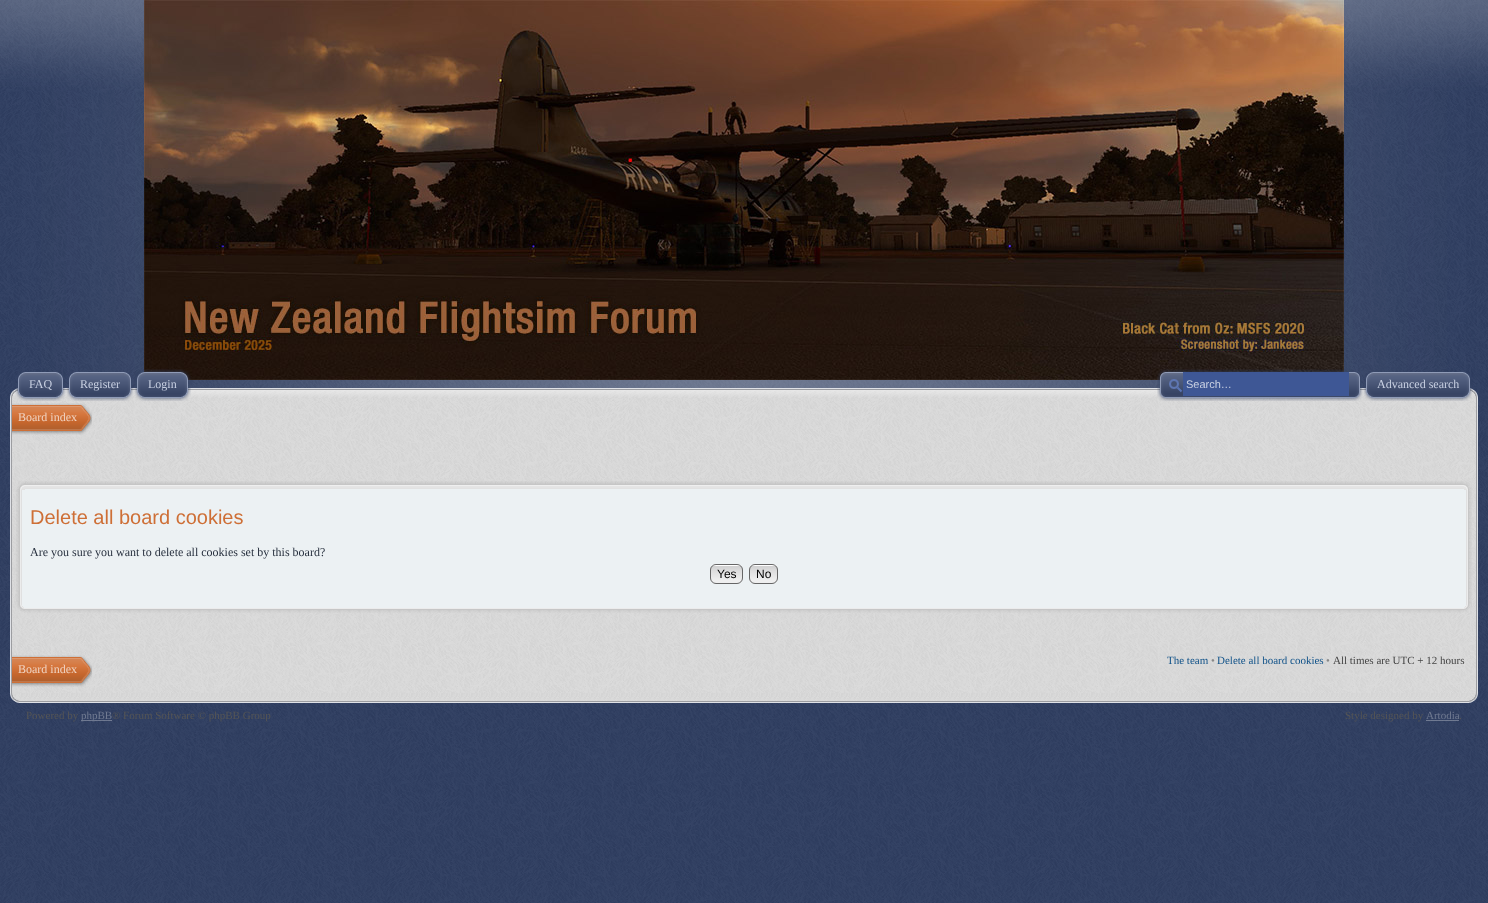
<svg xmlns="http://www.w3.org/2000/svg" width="1488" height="903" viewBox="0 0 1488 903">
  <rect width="100%" height="100%" fill="rgb(255,255,255)"/>
  <image x="0" y="0" width="1488" height="903" href="pic1.png"/>
  <image x="0" y="0" width="1488" height="388" href="pic2.png"/>
  <image x="144" y="0" width="1200" height="380" href="pic3.png"/>
  <image x="10" y="388" width="1468" height="13" href="pic4.png"/>
  <image x="15" y="372" width="41" height="29" href="pic5.png"/>
  <image x="56" y="372" width="10" height="29" href="pic6.png"/>
  <text x="29" y="388" font-family="Liberation Serif" font-size="12" fill="rgb(200,208,226)">FAQ</text>
  <image x="66" y="372" width="58" height="29" href="pic7.png"/>
  <image x="124" y="372" width="10" height="29" href="pic8.png"/>
  <text x="80" y="388" font-family="Liberation Serif" font-size="12" fill="rgb(200,208,226)">Register</text>
  <image x="134" y="369" width="47" height="32" href="pic9.png"/>
  <image x="181" y="369" width="10" height="32" href="pic10.png"/>
  <text x="148" y="388" font-family="Liberation Serif" font-size="12" fill="rgb(200,208,226)">Login</text>
  <image x="1157" y="369" width="206" height="32" href="pic11.png"/>
  <rect x="1183" y="372" width="166" height="24" fill="rgb(62,87,149)"/>
  <text x="1186" y="388" font-family="Liberation Sans" font-size="11" fill="rgb(200,208,226)">Search…</text>
  <image x="1363" y="372" width="100" height="29" href="pic12.png"/>
  <image x="1463" y="372" width="10" height="29" href="pic13.png"/>
  <text x="1377" y="388" font-family="Liberation Serif" font-size="12" fill="rgb(200,208,226)">Advanced search</text>
  <image x="10" y="401" width="1468" height="292" href="pic14.png"/>
  <image x="77" y="403" width="15" height="32" href="pic15.png"/>
  <image x="12" y="403" width="65" height="32" href="pic16.png"/>
  <text x="18" y="421" font-family="Liberation Serif" font-size="12" fill="rgb(240,212,195)">Board index</text>
  <rect x="22" y="489" width="1444" height="119" fill="rgb(236,241,243)"/>
  <image x="16" y="481" width="1456" height="132" href="pic17.png"/>
  <text x="30" y="524" font-family="Liberation Sans" font-size="20" fill="rgb(206,111,54)">Delete all board cookies</text>
  <text x="30" y="556" font-family="Liberation Serif" font-size="12" fill="rgb(40,49,63)">Are you sure you want to delete all cookies set by this board?</text>
  <image x="710" y="564" width="33" height="20" href="pic18.png"/>
  <rect x="710.5" y="564.5" width="32" height="19" rx="5.5" fill="none" stroke="rgb(102,102,102)"/>
  <text x="717" y="578" font-family="Liberation Sans" font-size="12" fill="rgb(0,0,0)">Yes</text>
  <image x="749" y="564" width="29" height="20" href="pic19.png"/>
  <rect x="749.5" y="564.5" width="28" height="19" rx="5.5" fill="none" stroke="rgb(102,102,102)"/>
  <text x="756" y="578" font-family="Liberation Sans" font-size="12" fill="rgb(0,0,0)">No</text>
  <text x="1167" y="664" font-family="Liberation Serif" font-size="11" fill="rgb(16,82,137)">The team</text>
  <text x="1211" y="664" font-family="Liberation Serif" font-size="11" fill="rgb(136,136,136)">•</text>
  <text x="1217" y="664" font-family="Liberation Serif" font-size="11" fill="rgb(16,82,137)">Delete all board cookies</text>
  <text x="1326" y="664" font-family="Liberation Serif" font-size="11" fill="rgb(136,136,136)">•</text>
  <text x="1333" y="664" font-family="Liberation Serif" font-size="11" fill="rgb(68,68,68)">All times are UTC + 12 hours</text>
  <image x="77" y="655" width="15" height="32" href="pic20.png"/>
  <image x="12" y="655" width="65" height="32" href="pic21.png"/>
  <text x="18" y="673" font-family="Liberation Serif" font-size="12" fill="rgb(240,212,195)">Board index</text>
  <image x="10" y="693" width="1468" height="10" href="pic22.png"/>
  <text x="26" y="719" font-family="Liberation Serif" font-size="11" fill="rgb(85,85,85)">Powered by</text>
  <rect x="81" y="720" width="31" height="1" fill="rgba(255,255,255,0.3)"/>
  <text x="81" y="719" font-family="Liberation Serif" font-size="11" fill="rgb(112,122,145)">phpBB</text>
  <g font-family="Liberation Serif" font-size="11" fill="rgb(85,85,85)">
    <text x="112" y="719">® Forum Software © phpBB Group</text>
    <text x="1345" y="719">Style designed by</text>
  </g>
  <text x="1426" y="719" font-family="Liberation Serif" font-size="11" fill="rgb(112,122,145)">Artodia</text>
  <rect x="1426" y="720" width="33" height="1" fill="rgba(255,255,255,0.3)"/>
  <text x="1459" y="719" font-family="Liberation Serif" font-size="11" fill="rgb(85,85,85)">.</text>
</svg>
